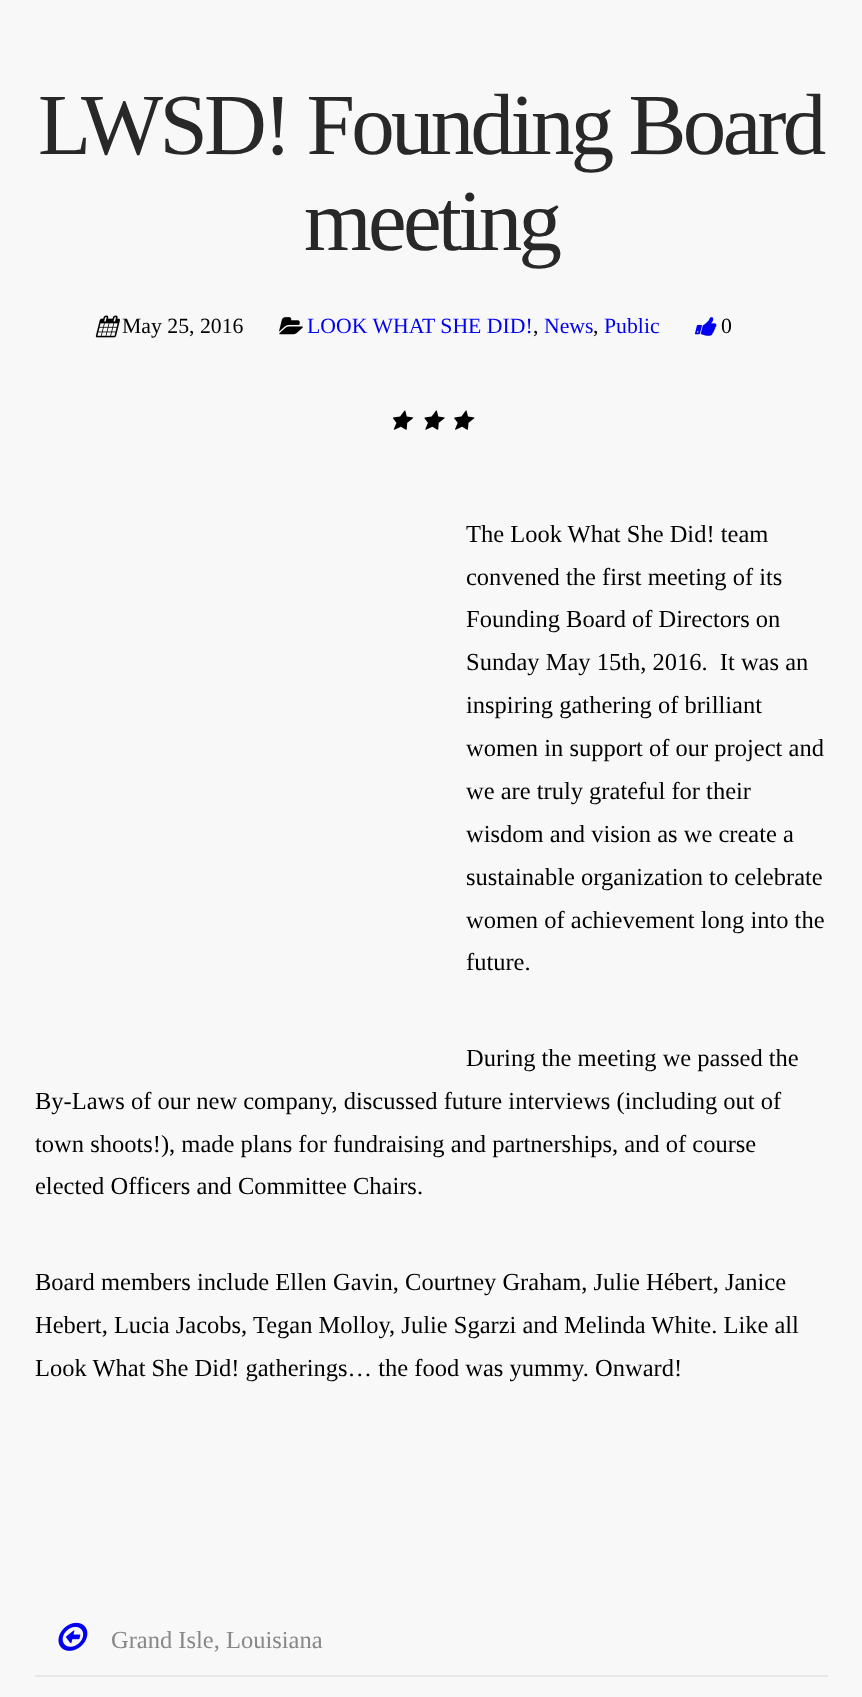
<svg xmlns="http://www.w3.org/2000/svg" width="862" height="1697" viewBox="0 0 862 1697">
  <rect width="100%" height="100%" fill="rgb(248,248,248)"/>
  <g font-family="Liberation Serif" font-size="87" letter-spacing="-3.7" fill="rgb(40,40,40)">
    <text x="38" y="154">LWSD! Founding Board</text>
    <text x="304" y="250">meeting</text>
  </g>
  <image x="95" y="315" width="25" height="23" href="pic1.png"/>
  <text x="122" y="333" font-family="Liberation Serif" font-size="21.75" fill="rgb(0,0,0)">May 25, 2016</text>
  <image x="278" y="317" width="25" height="18" href="pic2.png"/>
  <text x="307" y="333" font-family="Liberation Serif" font-size="21.75" fill="rgb(0,0,238)">LOOK WHAT SHE DID!</text>
  <text x="533" y="333" font-family="Liberation Serif" font-size="21.75" fill="rgb(0,0,0)">,</text>
  <text x="544" y="333" font-family="Liberation Serif" font-size="21.75" fill="rgb(0,0,238)">News</text>
  <text x="593" y="333" font-family="Liberation Serif" font-size="21.75" fill="rgb(0,0,0)">,</text>
  <text x="604" y="333" font-family="Liberation Serif" font-size="21.75" fill="rgb(0,0,238)">Public</text>
  <image x="695" y="317" width="22" height="19" href="pic3.png"/>
  <text x="721" y="333" font-family="Liberation Serif" font-size="21.75" fill="rgb(0,0,0)">0</text>
  <image x="393" y="410" width="21" height="20" href="pic4.png"/>
  <image x="424" y="410" width="21" height="20" href="pic5.png"/>
  <image x="454" y="410" width="21" height="20" href="pic6.png"/>
  <g font-family="Liberation Serif" font-size="24.5" fill="rgb(0,0,0)">
    <text xml:space="preserve"><tspan x="466" y="542">The Look What She Did! team</tspan><tspan x="466" y="585">convened the first meeting of its</tspan><tspan x="466" y="627">Founding Board of Directors on</tspan><tspan x="466" y="670">Sunday May 15th, 2016.  It was an</tspan><tspan x="466" y="713">inspiring gathering of brilliant</tspan><tspan x="466" y="756">women in support of our project and</tspan><tspan x="466" y="799">we are truly grateful for their</tspan><tspan x="466" y="842">wisdom and vision as we create a</tspan><tspan x="466" y="885">sustainable organization to celebrate</tspan><tspan x="466" y="928">women of achievement long into the</tspan><tspan x="466" y="970">future.</tspan></text>
    <text x="466" y="1066">During the meeting we passed the</text>
    <text>
      <tspan x="35" y="1109">By-Laws of our new company, discussed future interviews (including out of</tspan>
      <tspan x="35" y="1152">town shoots!), made plans for fundraising and partnerships, and of course</tspan>
      <tspan x="35" y="1194">elected Officers and Committee Chairs.</tspan>
    </text>
    <text>
      <tspan x="35" y="1290">Board members include Ellen Gavin, Courtney Graham, Julie Hébert, Janice</tspan>
      <tspan x="35" y="1333">Hebert, Lucia Jacobs, Tegan Molloy, Julie Sgarzi and Melinda White. Like all</tspan>
      <tspan x="35" y="1376">Look What She Did! gatherings… the food was yummy. Onward!</tspan>
    </text>
  </g>
  <rect x="35" y="1675" width="793" height="2" fill="rgb(232,232,232)"/>
  <image x="58" y="1622" width="30" height="29" href="pic7.png"/>
  <text x="111" y="1648" font-family="Liberation Serif" font-size="24.5" fill="rgb(136,136,136)">Grand Isle, Louisiana</text>
</svg>
